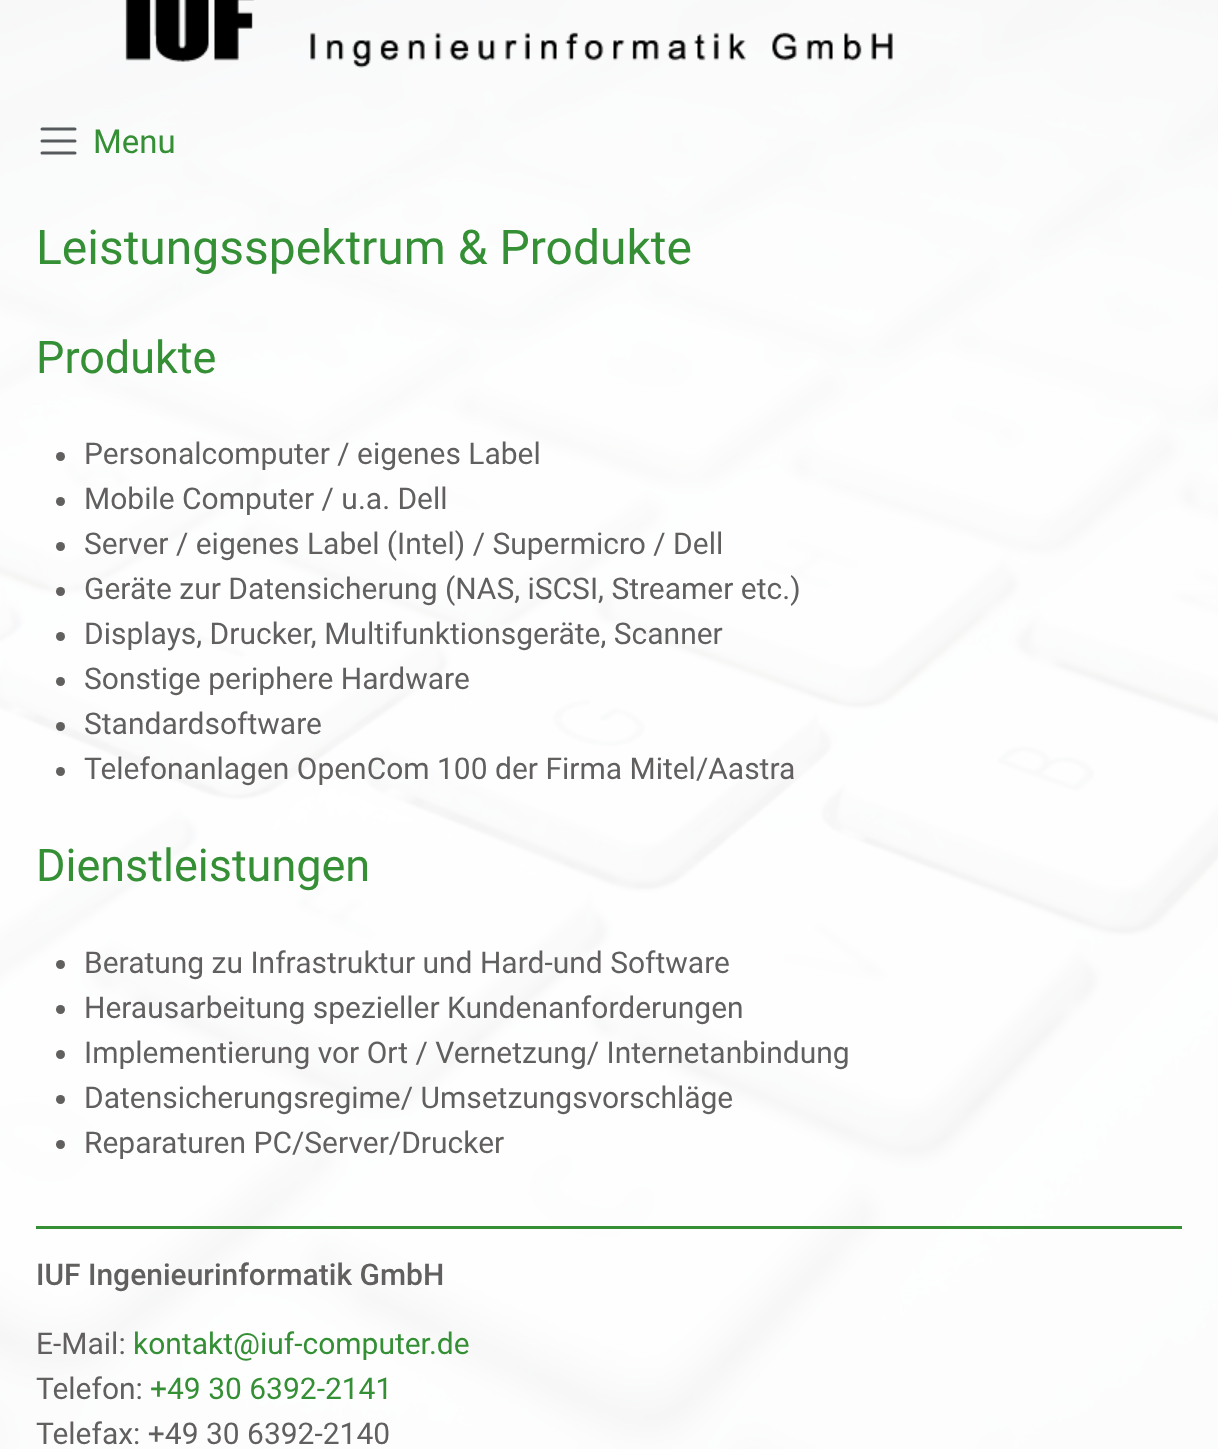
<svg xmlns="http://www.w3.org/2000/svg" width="1218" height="1449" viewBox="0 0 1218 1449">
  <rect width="100%" height="100%" fill="rgb(255,255,255)"/>
  <image x="0" y="0" width="1218" height="1449" href="pic1.png"/>
  <image x="125" y="0" width="768" height="68" href="pic2.png"/>
  <path d="M42 129H75M42 141H75M42 153H75" fill="none" stroke="rgb(87,90,93)" stroke-width="3" stroke-linecap="round"/>
  <text x="93" y="153" font-family="Roboto" font-size="33" fill="rgb(52,143,53)">Menu</text>
  <text x="36" y="264" font-family="Roboto" font-size="48" fill="rgb(52,143,53)">Leistungsspektrum &amp; Produkte</text>
  <text x="36" y="373" font-family="Roboto" font-size="45" fill="rgb(52,143,53)">Produkte</text>
  <circle cx="60.5" cy="456.5" r="4.5" fill="rgb(98,95,95)"/>
  <text x="84" y="464" font-family="Roboto" font-size="30" fill="rgb(98,95,95)">Personalcomputer / eigenes Label</text>
  <circle cx="60.5" cy="501.5" r="4.5" fill="rgb(98,95,95)"/>
  <text x="84" y="509" font-family="Roboto" font-size="30" fill="rgb(98,95,95)">Mobile Computer / u.a. Dell</text>
  <circle cx="60.5" cy="546.5" r="4.5" fill="rgb(98,95,95)"/>
  <text x="84" y="554" font-family="Roboto" font-size="30" fill="rgb(98,95,95)">Server / eigenes Label (Intel) / Supermicro / Dell</text>
  <circle cx="60.5" cy="591.5" r="4.5" fill="rgb(98,95,95)"/>
  <text x="84" y="599" font-family="Roboto" font-size="30" fill="rgb(98,95,95)">Geräte zur Datensicherung (NAS, iSCSI, Streamer etc.)</text>
  <circle cx="60.5" cy="636.5" r="4.5" fill="rgb(98,95,95)"/>
  <text x="84" y="644" font-family="Roboto" font-size="30" fill="rgb(98,95,95)">Displays, Drucker, Multifunktionsgeräte, Scanner</text>
  <circle cx="60.5" cy="681.5" r="4.5" fill="rgb(98,95,95)"/>
  <text x="84" y="689" font-family="Roboto" font-size="30" fill="rgb(98,95,95)">Sonstige periphere Hardware</text>
  <circle cx="60.5" cy="726.5" r="4.5" fill="rgb(98,95,95)"/>
  <text x="84" y="734" font-family="Roboto" font-size="30" fill="rgb(98,95,95)">Standardsoftware</text>
  <circle cx="60.5" cy="771.5" r="4.5" fill="rgb(98,95,95)"/>
  <text x="84" y="779" font-family="Roboto" font-size="30" fill="rgb(98,95,95)">Telefonanlagen OpenCom 100 der Firma Mitel/Aastra</text>
  <text x="36" y="881" font-family="Roboto" font-size="45" fill="rgb(52,143,53)">Dienstleistungen</text>
  <circle cx="60.5" cy="964.5" r="4.5" fill="rgb(98,95,95)"/>
  <text x="84" y="973" font-family="Roboto" font-size="30" fill="rgb(98,95,95)">Beratung zu Infrastruktur und Hard-und Software</text>
  <circle cx="60.5" cy="1009.5" r="4.5" fill="rgb(98,95,95)"/>
  <text x="84" y="1018" font-family="Roboto" font-size="30" fill="rgb(98,95,95)">Herausarbeitung spezieller Kundenanforderungen</text>
  <circle cx="60.5" cy="1054.5" r="4.5" fill="rgb(98,95,95)"/>
  <text x="84" y="1063" font-family="Roboto" font-size="30" fill="rgb(98,95,95)">Implementierung vor Ort / Vernetzung/ Internetanbindung</text>
  <circle cx="60.5" cy="1099.5" r="4.5" fill="rgb(98,95,95)"/>
  <text x="84" y="1108" font-family="Roboto" font-size="30" fill="rgb(98,95,95)">Datensicherungsregime/ Umsetzungsvorschläge</text>
  <circle cx="60.5" cy="1144.5" r="4.5" fill="rgb(98,95,95)"/>
  <text x="84" y="1153" font-family="Roboto" font-size="30" fill="rgb(98,95,95)">Reparaturen PC/Server/Drucker</text>
  <rect x="36" y="1226" width="1146" height="3" fill="rgb(52,143,53)"/>
  <text x="36" y="1285" font-family="Roboto" font-size="30" font-weight="500" fill="rgb(98,95,95)">IUF Ingenieurinformatik GmbH</text>
  <text x="36" y="1354" font-family="Roboto" font-size="30" fill="rgb(98,95,95)">E-Mail:</text>
  <text x="133" y="1354" font-family="Roboto" font-size="30" fill="rgb(52,143,53)">kontakt@iuf-computer.de</text>
  <text x="36" y="1399" font-family="Roboto" font-size="30" fill="rgb(98,95,95)">Telefon:</text>
  <text x="150" y="1399" font-family="Roboto" font-size="30" fill="rgb(52,143,53)">+49 30 6392-2141</text>
  <text x="36" y="1444" font-family="Roboto" font-size="30" fill="rgb(98,95,95)">Telefax: +49 30 6392-2140</text>
</svg>
